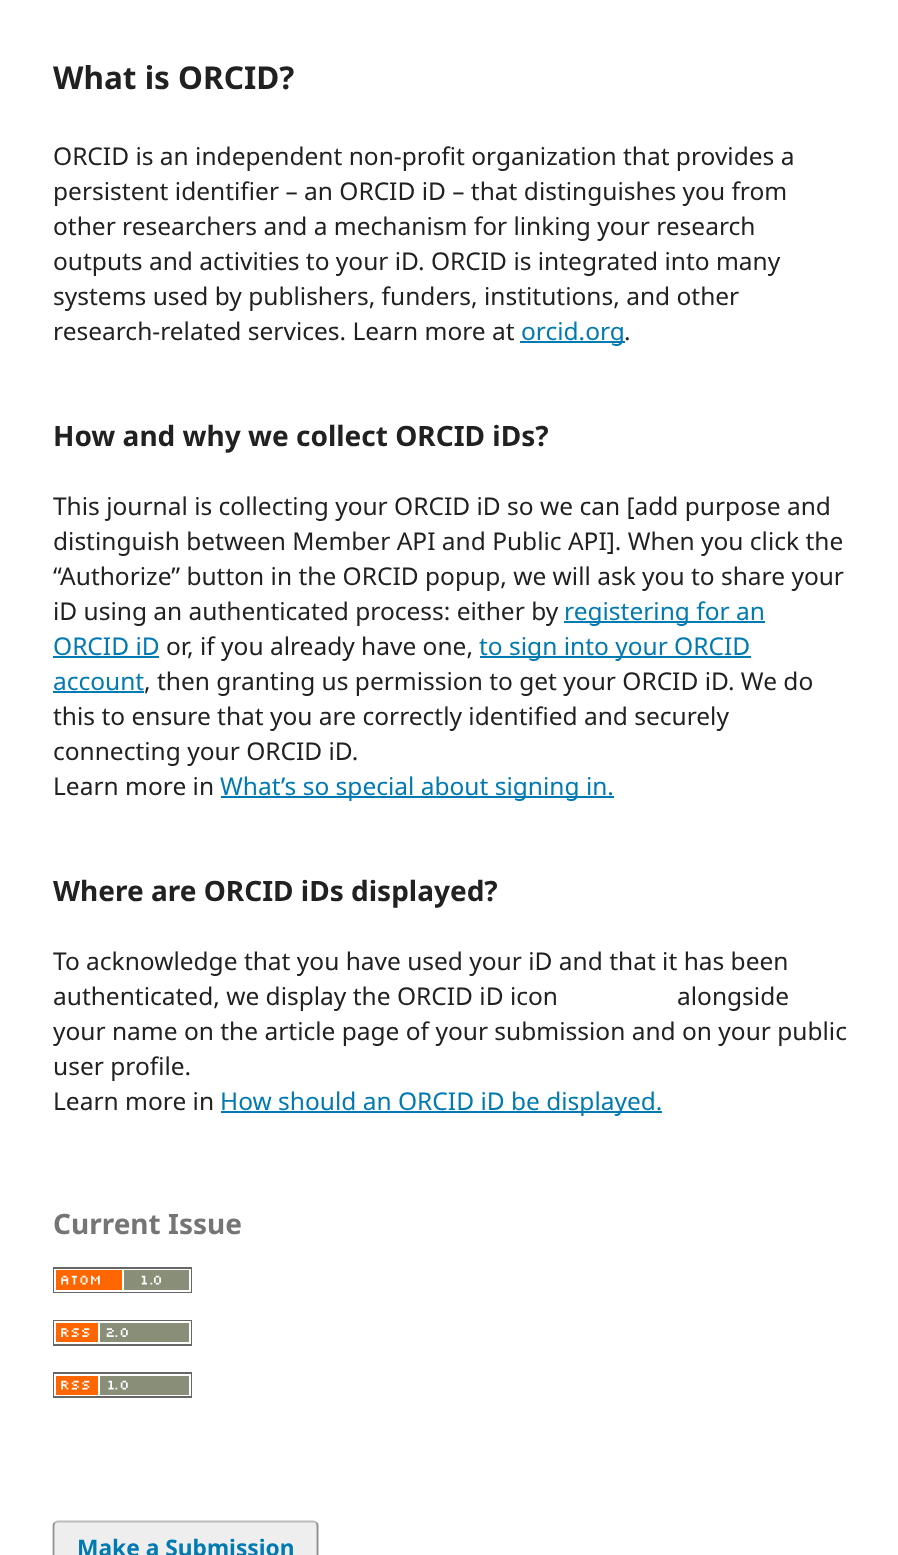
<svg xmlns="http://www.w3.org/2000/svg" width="898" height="1555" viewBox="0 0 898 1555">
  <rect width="100%" height="100%" fill="rgb(255,255,255)"/>
  <text x="53" y="89" font-family="Noto Sans" font-size="31.5" font-weight="bold" fill="rgb(33,33,33)">What is ORCID?</text>
  <g font-family="Noto Sans" font-size="24.5" fill="rgb(33,33,33)">
    <text>
      <tspan x="53" y="165">ORCID is an independent non-profit organization that provides a</tspan>
      <tspan x="53" y="200">persistent identifier – an ORCID iD – that distinguishes you from</tspan>
      <tspan x="53" y="235">other researchers and a mechanism for linking your research</tspan>
      <tspan x="53" y="270">outputs and activities to your iD. ORCID is integrated into many</tspan>
      <tspan x="53" y="305">systems used by publishers, funders, institutions, and other</tspan>
      <tspan x="53" y="340">research-related services. Learn more at</tspan>
    </text>
  </g>
  <rect x="520" y="341" width="105" height="2" fill="rgb(0,122,178)"/>
  <text x="521" y="340" font-family="Noto Sans" font-size="24.5" fill="rgb(0,122,178)">orcid.org</text>
  <text x="624" y="340" font-family="Noto Sans" font-size="24.5" fill="rgb(33,33,33)">.</text>
  <text x="53" y="446" font-family="Noto Sans" font-size="28" font-weight="bold" fill="rgb(33,33,33)">How and why we collect ORCID iDs?</text>
  <g font-family="Noto Sans" font-size="24.5" fill="rgb(33,33,33)">
    <text>
      <tspan x="53" y="515">This journal is collecting your ORCID iD so we can [add purpose and</tspan>
      <tspan x="53" y="550">distinguish between Member API and Public API]. When you click the</tspan>
      <tspan x="53" y="585">“Authorize” button in the ORCID popup, we will ask you to share your</tspan>
      <tspan x="53" y="620">iD using an authenticated process: either by</tspan>
    </text>
  </g>
  <rect x="564" y="621" width="201" height="2" fill="rgb(0,122,178)"/>
  <g font-family="Noto Sans" font-size="24.5" fill="rgb(0,122,178)">
    <text x="564" y="620">registering for an</text>
    <text x="53" y="655">ORCID iD</text>
  </g>
  <rect x="53" y="656" width="106" height="2" fill="rgb(0,122,178)"/>
  <text x="166" y="655" font-family="Noto Sans" font-size="24.5" fill="rgb(33,33,33)">or, if you already have one,</text>
  <rect x="480" y="656" width="271" height="2" fill="rgb(0,122,178)"/>
  <g font-family="Noto Sans" font-size="24.5" fill="rgb(0,122,178)">
    <text x="479" y="655">to sign into your ORCID</text>
    <text x="53" y="690">account</text>
  </g>
  <rect x="53" y="691" width="91" height="2" fill="rgb(0,122,178)"/>
  <g font-family="Noto Sans" font-size="24.5" fill="rgb(33,33,33)">
    <text x="144" y="690">, then granting us permission to get your ORCID iD. We do</text>
    <text>
      <tspan x="53" y="725">this to ensure that you are correctly identified and securely</tspan>
      <tspan x="53" y="760">connecting your ORCID iD.</tspan>
      <tspan x="53" y="795">Learn more in</tspan>
    </text>
  </g>
  <rect x="221" y="796" width="393" height="2" fill="rgb(0,122,178)"/>
  <text x="220" y="795" font-family="Noto Sans" font-size="24.5" fill="rgb(0,122,178)">What’s so special about signing in.</text>
  <text x="53" y="901" font-family="Noto Sans" font-size="28" font-weight="bold" fill="rgb(33,33,33)">Where are ORCID iDs displayed?</text>
  <g font-family="Noto Sans" font-size="24.5" fill="rgb(33,33,33)">
    <text>
      <tspan x="53" y="970">To acknowledge that you have used your iD and that it has been</tspan>
      <tspan x="53" y="1005">authenticated, we display the ORCID iD icon</tspan>
    </text>
    <text x="677" y="1005">alongside</text>
    <text>
      <tspan x="53" y="1040">your name on the article page of your submission and on your public</tspan>
      <tspan x="53" y="1075">user profile.</tspan>
      <tspan x="53" y="1110">Learn more in</tspan>
    </text>
  </g>
  <rect x="221" y="1111" width="441" height="2" fill="rgb(0,122,178)"/>
  <text x="220" y="1110" font-family="Noto Sans" font-size="24.5" fill="rgb(0,122,178)">How should an ORCID iD be displayed.</text>
  <text x="53" y="1234" font-family="Noto Sans" font-size="28" font-weight="bold" fill="rgb(117,117,117)">Current Issue</text>
  <image x="53" y="1267" width="139" height="26" href="pic1.png"/>
  <image x="53" y="1320" width="139" height="26" href="pic2.png"/>
  <image x="53" y="1372" width="139" height="26" href="pic3.png"/>
  <rect x="53" y="1521" width="266" height="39" rx="5" fill="rgb(238,238,238)"/>
  <path d="M54.5 1523C55.5 1522 56.5 1521.5 58 1521.5H313C314.5 1521.5 315.5 1522 316.5 1523" fill="none" stroke="rgb(187,187,187)" stroke-width="1.8"/>
  <path d="M316.5 1523C317 1523.5 317.5 1525 317.5 1526V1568C317.5 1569 317 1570.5 316.5 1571C315.5 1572 314.5 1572.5 313 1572.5H58C56.5 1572.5 55.5 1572 54.5 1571C54 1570.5 53.5 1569 53.5 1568V1526C53.5 1525 54 1523.5 54.5 1523" fill="none" stroke="rgba(0,0,0,0.4)" stroke-width="1.8"/>
  <text x="77" y="1556" font-family="Noto Sans" font-size="22.75" font-weight="bold" fill="rgb(0,122,178)">Make a Submission</text>
</svg>
